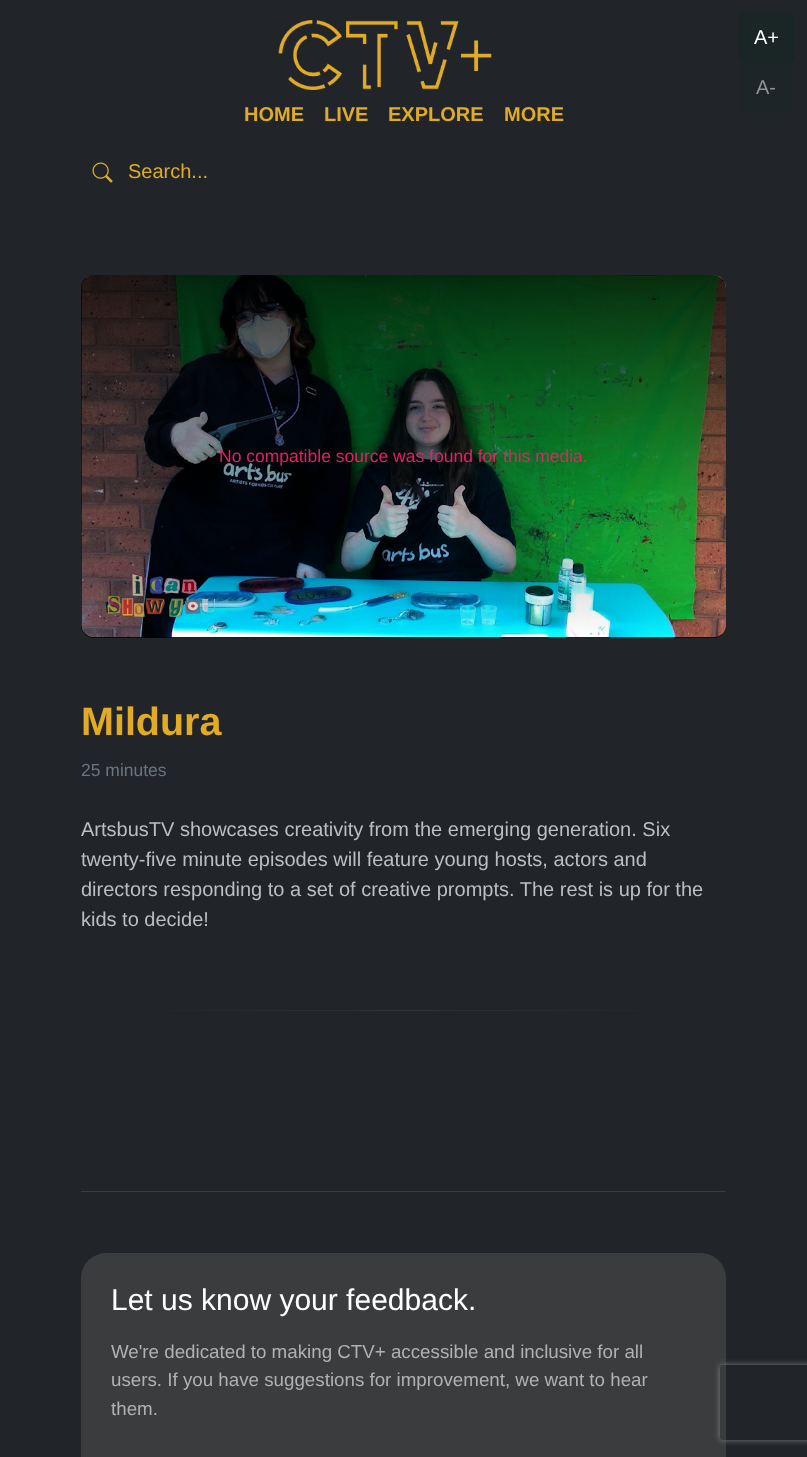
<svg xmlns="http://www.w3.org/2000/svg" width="807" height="1457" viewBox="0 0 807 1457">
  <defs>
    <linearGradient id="g1" gradientUnits="userSpaceOnUse" x1="404" y1="275" x2="404" y2="638"><stop offset="0" stop-color="rgb(0,0,0)" stop-opacity="0.8"/><stop offset="1" stop-color="rgb(0,0,0)" stop-opacity="0"/></linearGradient>
    <linearGradient id="g2" gradientUnits="userSpaceOnUse" x1="114" y1="1011" x2="694" y2="1011"><stop offset="0" stop-color="rgb(33,37,41)"/><stop offset="0.5" stop-color="rgb(48,49,51)"/><stop offset="1" stop-color="rgb(33,37,41)"/></linearGradient>
    <clipPath id="clip1"><path d="M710 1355H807V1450H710ZM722.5 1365H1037.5C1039 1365 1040 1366 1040 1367.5V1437.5C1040 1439 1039 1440 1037.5 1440H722.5C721 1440 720 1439 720 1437.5V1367.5C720 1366 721 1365 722.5 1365Z" clip-rule="evenodd"/></clipPath>
  </defs>
  <rect width="100%" height="100%" fill="rgb(33,37,41)"/>
  <image x="278" y="20" width="214" height="70" href="pic1.png"/>
  <rect x="738" y="13" width="57" height="50" rx="6" fill="rgb(26,37,38)"/>
  <text x="754" y="44" font-family="Liberation Sans" font-size="20" fill="rgb(255,255,255)">A+</text>
  <rect x="740" y="63" width="53" height="50" rx="6" fill="rgb(30,37,40)"/>
  <text x="756" y="94" font-family="Liberation Sans" font-size="20" fill="rgb(144,146,148)">A-</text>
  <g font-family="Liberation Sans" font-size="20" font-weight="bold" fill="rgb(225,171,38)">
    <text x="244" y="121">HOME</text>
    <text x="324" y="121">LIVE</text>
    <text x="388" y="121">EXPLORE</text>
    <text x="504" y="121">MORE</text>
  </g>
  <image x="92" y="162" width="21" height="21" href="pic2.png"/>
  <text x="128" y="178" font-family="Liberation Sans" font-size="20" fill="rgb(225,171,38)">Search...</text>
  <rect x="81" y="275" width="645" height="363" rx="13" fill="rgb(0,0,0)"/>
  <image x="81" y="275" width="645" height="363" href="pic3.png"/>
  <rect x="81" y="275" width="645" height="363" rx="13" fill="url(#g1)"/>
  <text x="219" y="462" font-family="Liberation Sans" font-size="17.5" fill="rgb(233,30,99)">No compatible source was found for this media.</text>
  <text x="81" y="735" font-family="Liberation Sans" font-size="39.5" font-weight="bold" fill="rgb(225,171,38)">Mildura</text>
  <text x="81" y="776" font-family="Liberation Sans" font-size="17.5" fill="rgb(108,117,125)">25 minutes</text>
  <g font-family="Liberation Sans" font-size="20" fill="rgb(188,190,191)">
    <text>
      <tspan x="81" y="836">ArtsbusTV showcases creativity from the emerging generation. Six</tspan>
      <tspan x="81" y="866">twenty-five minute episodes will feature young hosts, actors and</tspan>
      <tspan x="81" y="896">directors responding to a set of creative prompts. The rest is up for the</tspan>
      <tspan x="81" y="926">kids to decide!</tspan>
    </text>
  </g>
  <rect x="162" y="1010" width="484" height="1" fill="url(#g2)"/>
  <rect x="81" y="1191" width="645" height="1" fill="rgb(58,60,62)"/>
  <rect x="81" y="1253" width="645" height="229" rx="25" fill="rgb(58,60,62)"/>
  <text x="111" y="1310" font-family="Liberation Sans" font-size="30" fill="rgb(255,255,255)">Let us know your feedback.</text>
  <g font-family="Liberation Sans" font-size="18.75" fill="rgb(176,177,178)">
    <text>
      <tspan x="111" y="1358">We're dedicated to making CTV+ accessible and inclusive for all</tspan>
      <tspan x="111" y="1386">users. If you have suggestions for improvement, we want to hear</tspan>
      <tspan x="111" y="1415">them.</tspan>
    </text>
  </g>
  <g clip-path="url(#clip1)">
    <rect x="720" y="1365" width="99" height="75" rx="2.5" fill="rgb(128,128,128)" filter="blur(3px)"/>
  </g>
</svg>
